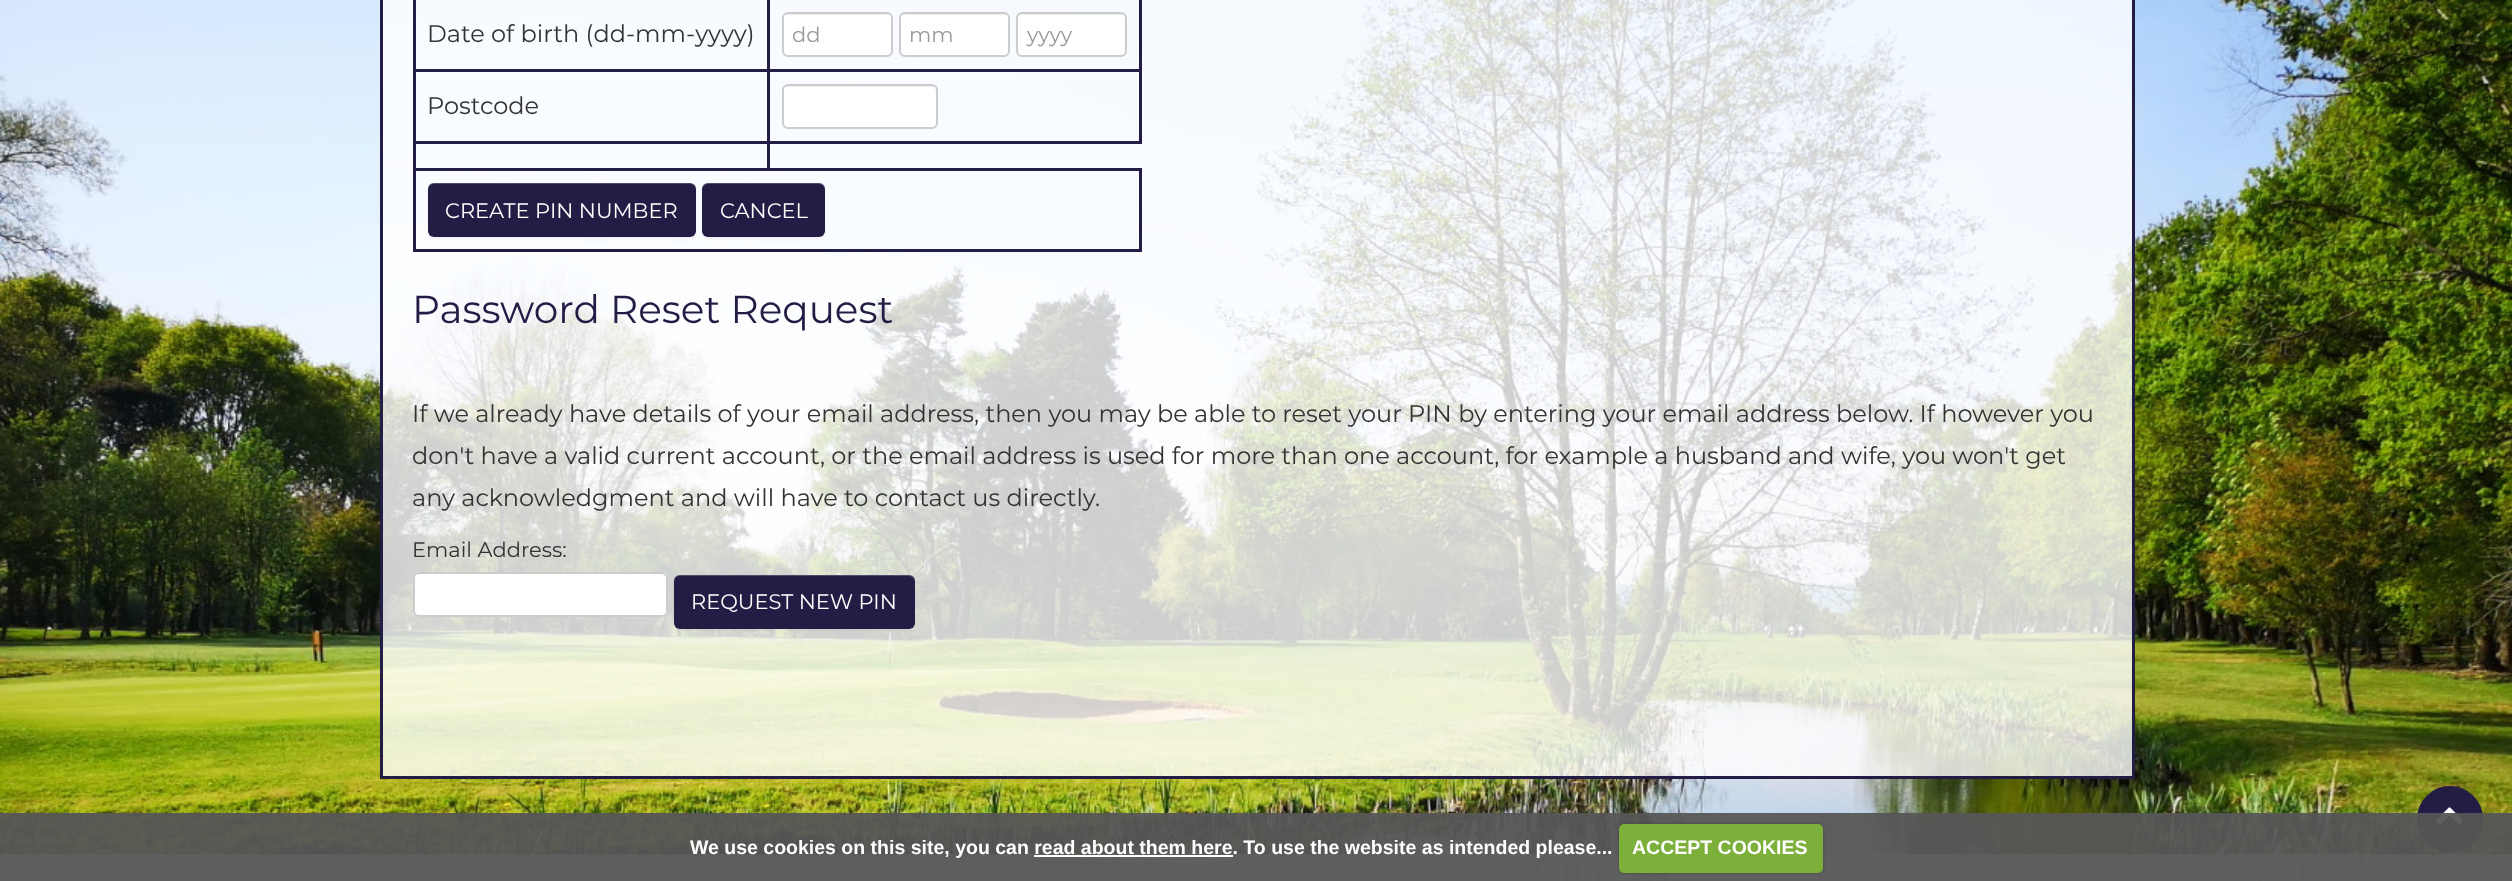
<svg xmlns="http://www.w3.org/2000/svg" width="2512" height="881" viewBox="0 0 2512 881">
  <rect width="100%" height="100%" fill="rgb(255,255,255)"/>
  <image x="0" y="0" width="2512" height="881" href="pic1.png"/>
  <rect x="381.5" y="-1.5" width="1752" height="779" fill="rgba(255,255,255,0.8)" stroke="rgb(35,29,69)" stroke-width="3"/>
  <text x="427" y="42" font-family="Montserrat" font-size="24" fill="rgb(51,51,51)">Date of birth (dd-mm-yyyy)</text>
  <rect x="767" y="69" width="375" height="3" fill="rgb(35,29,69)"/>
  <rect x="1139" y="0" width="3" height="144" fill="rgb(35,29,69)"/>
  <rect x="413" y="141" width="357" height="3" fill="rgb(35,29,69)"/>
  <rect x="413" y="168" width="729" height="3" fill="rgb(35,29,69)"/>
  <rect x="767" y="141" width="3" height="30" fill="rgb(35,29,69)"/>
  <rect x="767" y="141" width="375" height="3" fill="rgb(35,29,69)"/>
  <rect x="767" y="69" width="3" height="75" fill="rgb(35,29,69)"/>
  <rect x="413" y="69" width="357" height="3" fill="rgb(35,29,69)"/>
  <rect x="767" y="0" width="3" height="72" fill="rgb(35,29,69)"/>
  <rect x="782" y="12" width="111" height="45" rx="6" fill="rgb(255,255,255)"/>
  <path d="M788 15H886C889 15 891 17 891 20C891 10 875 14 870 14H804C799 14 783 10 783 20C783 17 785 15 788 15Z" fill="rgb(236,236,236)"/>
  <rect x="783" y="13" width="109" height="43" rx="5" fill="none" stroke="rgb(204,204,204)" stroke-width="2"/>
  <text x="792" y="42" font-family="Montserrat" font-size="21" fill="rgb(153,153,153)">dd</text>
  <rect x="899" y="12" width="111" height="45" rx="6" fill="rgb(255,255,255)"/>
  <path d="M904 15H1004C1006 15 1008 17 1008 20C1008 10 992 14 987 14H921C916 14 900 10 900 20C900 17 902 15 904 15Z" fill="rgb(236,236,236)"/>
  <rect x="900" y="13" width="109" height="43" rx="5" fill="none" stroke="rgb(204,204,204)" stroke-width="2"/>
  <text x="909" y="42" font-family="Montserrat" font-size="21" fill="rgb(153,153,153)">mm</text>
  <rect x="1016" y="12" width="111" height="45" rx="6" fill="rgb(255,255,255)"/>
  <path d="M1022 15H1120C1123 15 1125 17 1125 20C1125 10 1109 14 1104 14H1038C1033 14 1017 10 1017 20C1017 17 1019 15 1022 15Z" fill="rgb(236,236,236)"/>
  <rect x="1017" y="13" width="109" height="43" rx="5" fill="none" stroke="rgb(204,204,204)" stroke-width="2"/>
  <text x="1027" y="42" font-family="Montserrat" font-size="21" fill="rgb(153,153,153)">yyyy</text>
  <rect x="1139" y="168" width="3" height="84" fill="rgb(35,29,69)"/>
  <rect x="413" y="249" width="729" height="3" fill="rgb(35,29,69)"/>
  <rect x="413" y="168" width="3" height="84" fill="rgb(35,29,69)"/>
  <rect x="413" y="141" width="3" height="30" fill="rgb(35,29,69)"/>
  <rect x="413" y="0" width="3" height="144" fill="rgb(35,29,69)"/>
  <text x="427" y="114" font-family="Montserrat" font-size="24" fill="rgb(51,51,51)">Postcode</text>
  <rect x="782" y="84" width="156" height="45" rx="6" fill="rgb(255,255,255)"/>
  <path d="M788 87H932C934 87 936 89 936 92V91C936 88 934 86 931 86H788C785 86 783 88 783 91V92C783 89 785 87 788 87Z" fill="rgb(236,236,236)"/>
  <rect x="783" y="85" width="154" height="43" rx="5" fill="none" stroke="rgb(204,204,204)" stroke-width="2"/>
  <rect x="428" y="185" width="268" height="54" rx="6" fill="rgba(0,0,0,0.05)" filter="blur(1.5px)"/>
  <rect x="428" y="183" width="268" height="54" rx="6" fill="rgb(35,29,69)"/>
  <path d="M434 184H690C693 184 696 187 696 190V189C696 186 693 183 690 183H434C431 183 428 186 428 189V190C428 187 430 184 434 184Z" fill="rgba(255,255,255,0.2)"/>
  <text x="445" y="218" font-family="Montserrat" font-size="21" fill="rgb(255,255,255)">CREATE PIN NUMBER</text>
  <rect x="702" y="185" width="123" height="54" rx="6" fill="rgba(0,0,0,0.05)" filter="blur(1.5px)"/>
  <rect x="702" y="183" width="123" height="54" rx="6" fill="rgb(35,29,69)"/>
  <path d="M708 184H819C822 184 825 187 825 190C825 178 806 183 800 183H726C721 183 702 178 702 190C702 187 705 184 708 184Z" fill="rgba(255,255,255,0.2)"/>
  <text x="720" y="218" font-family="Montserrat" font-size="21" fill="rgb(255,255,255)">CANCEL</text>
  <text x="412" y="323" font-family="Montserrat" font-size="39" fill="rgb(35,29,69)">Password Reset Request</text>
  <g font-family="Montserrat" font-size="24" fill="rgb(51,51,51)">
    <text>
      <tspan x="412" y="422">If we already have details of your email address, then you may be able to reset your PIN by entering your email address below. If however you</tspan>
      <tspan x="412" y="464">don't have a valid current account, or the email address is used for more than one account, for example a husband and wife, you won't get</tspan>
      <tspan x="412" y="506">any acknowledgment and will have to contact us directly.</tspan>
    </text>
  </g>
  <text x="412" y="557" font-family="Montserrat" font-size="21" fill="rgb(51,51,51)">Email Address:</text>
  <rect x="413" y="572" width="255" height="45" rx="6" fill="rgb(255,255,255)"/>
  <path d="M418 574H662C664 574 666 577 666 579V578C666 575 664 573 661 573H419C416 573 414 575 414 578V579C414 577 416 574 418 574Z" fill="rgb(236,236,236)"/>
  <rect x="414" y="573" width="253" height="43" rx="5" fill="none" stroke="rgb(204,204,204)" stroke-width="2"/>
  <rect x="674" y="576" width="241" height="54" rx="6" fill="rgba(0,0,0,0.05)" filter="blur(1.5px)"/>
  <rect x="674" y="575" width="241" height="54" rx="6" fill="rgb(35,29,69)"/>
  <path d="M680 576H909C912 576 915 579 915 582V581C915 578 912 575 909 575H680C677 575 674 578 674 581V582C674 579 676 576 680 576Z" fill="rgba(255,255,255,0.2)"/>
  <text x="691" y="609" font-family="Montserrat" font-size="21" fill="rgb(255,255,255)">REQUEST NEW PIN</text>
  <circle cx="2450" cy="819" r="31.5" fill="rgb(35,29,69)" stroke="rgb(35,29,69)" stroke-width="3"/>
  <image x="2436" y="807" width="27" height="18" href="pic2.png"/>
  <rect x="0" y="854" width="2512" height="27" fill="rgba(255,255,255,0.8)"/>
  <rect x="0" y="813" width="2512" height="68" fill="rgba(86,86,86,0.95)"/>
  <text x="690" y="854" font-family="Liberation Sans" font-size="19.5" font-weight="bold" fill="rgb(255,255,255)">We use cookies on this site, you can read about them here. To use the website as intended please...</text>
  <rect x="1619" y="824" width="204" height="49" rx="5" fill="rgba(0,0,0,0.25)" filter="blur(1.5px)"/>
  <rect x="1619" y="824" width="204" height="49" rx="5" fill="rgb(125,175,59)"/>
  <text x="1632" y="854" font-family="Liberation Sans" font-size="19.5" font-weight="bold" fill="rgb(255,255,255)">ACCEPT COOKIES</text>
  <rect x="1034" y="855" width="199" height="2" fill="rgb(255,255,255)"/>
</svg>
